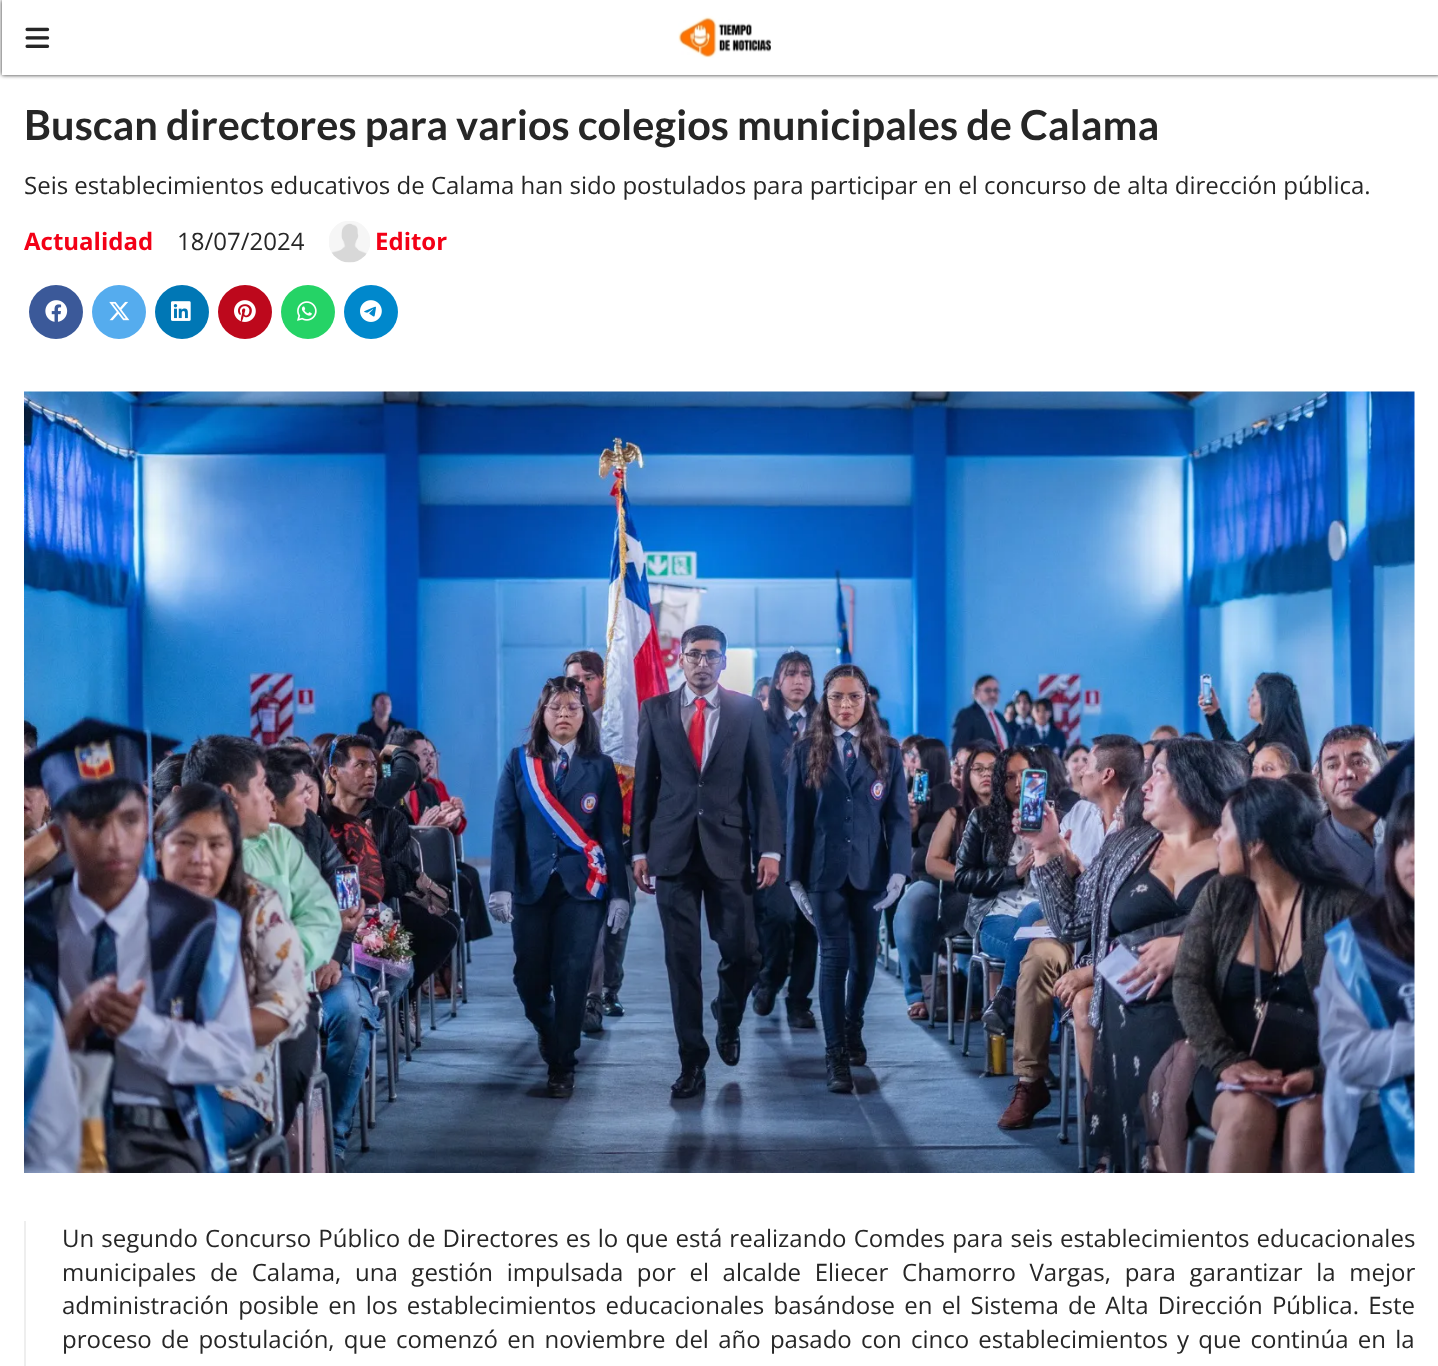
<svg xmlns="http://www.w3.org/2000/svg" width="1438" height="1366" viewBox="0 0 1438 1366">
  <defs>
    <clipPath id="clip1"><path d="M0 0H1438V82H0ZM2 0H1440V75H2Z" clip-rule="evenodd"/></clipPath>
  </defs>
  <rect width="100%" height="100%" fill="rgb(255,255,255)"/>
  <g clip-path="url(#clip1)">
    <rect x="2" y="0" width="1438" height="75" fill="rgb(38,38,38)" filter="blur(2px)"/>
  </g>
  <image x="25" y="27" width="25" height="21" href="pic1.png"/>
  <image x="678" y="16" width="93" height="42" href="pic2.png"/>
  <text x="24" y="140" font-family="Lato" font-size="41.5" font-weight="bold" fill="rgb(38,38,38)">Buscan directores para varios colegios municipales de Calama</text>
  <text x="24" y="194" font-family="Open Sans" font-size="24" fill="rgb(38,38,38)">Seis establecimientos educativos de Calama han sido postulados para participar en el concurso de alta dirección pública.</text>
  <text x="24" y="250" font-family="Open Sans" font-size="24" font-weight="bold" fill="rgb(243,0,22)">Actualidad</text>
  <text x="177" y="250" font-family="Open Sans" font-size="24" fill="rgb(38,38,38)">18/07/2024</text>
  <image x="329" y="221" width="41" height="42" href="pic3.png"/>
  <text x="375" y="250" font-family="Open Sans" font-size="24" font-weight="bold" fill="rgb(243,0,22)">Editor</text>
  <circle cx="56" cy="312" r="27" fill="rgb(59,89,153)"/>
  <image x="45" y="300" width="23" height="22" href="pic4.png"/>
  <circle cx="119" cy="312" r="27" fill="rgb(85,172,238)"/>
  <image x="109" y="301" width="21" height="20" href="pic5.png"/>
  <circle cx="182" cy="312" r="27" fill="rgb(0,119,181)"/>
  <image x="171" y="301" width="20" height="20" href="pic6.png"/>
  <circle cx="245" cy="312" r="27" fill="rgb(189,8,28)"/>
  <image x="234" y="300" width="22" height="22" href="pic7.png"/>
  <circle cx="308" cy="312" r="27" fill="rgb(37,211,102)"/>
  <image x="297" y="301" width="20" height="20" href="pic8.png"/>
  <circle cx="371" cy="312" r="27" fill="rgb(0,136,204)"/>
  <image x="360" y="300" width="22" height="22" href="pic9.png"/>
  <image x="24" y="391" width="1391" height="782" href="pic10.png"/>
  <rect x="24" y="1221" width="2" height="145" fill="rgb(238,238,238)"/>
  <g font-family="Open Sans" font-size="24" fill="rgb(38,38,38)">
    <text>
      <tspan x="62" y="1247" word-spacing="0.9">Un segundo Concurso Público de Directores es lo que está realizando Comdes para seis establecimientos educacionales</tspan>
      <tspan x="62" y="1281" word-spacing="7.4">municipales de Calama, una gestión impulsada por el alcalde Eliecer Chamorro Vargas, para garantizar la mejor</tspan>
      <tspan x="62" y="1314" word-spacing="3">administración posible en los establecimientos educacionales basándose en el Sistema de Alta Dirección Pública. Este</tspan>
      <tspan x="62" y="1348" word-spacing="3">proceso de postulación, que comenzó en noviembre del año pasado con cinco establecimientos y que continúa en la</tspan>
    </text>
  </g>
</svg>
